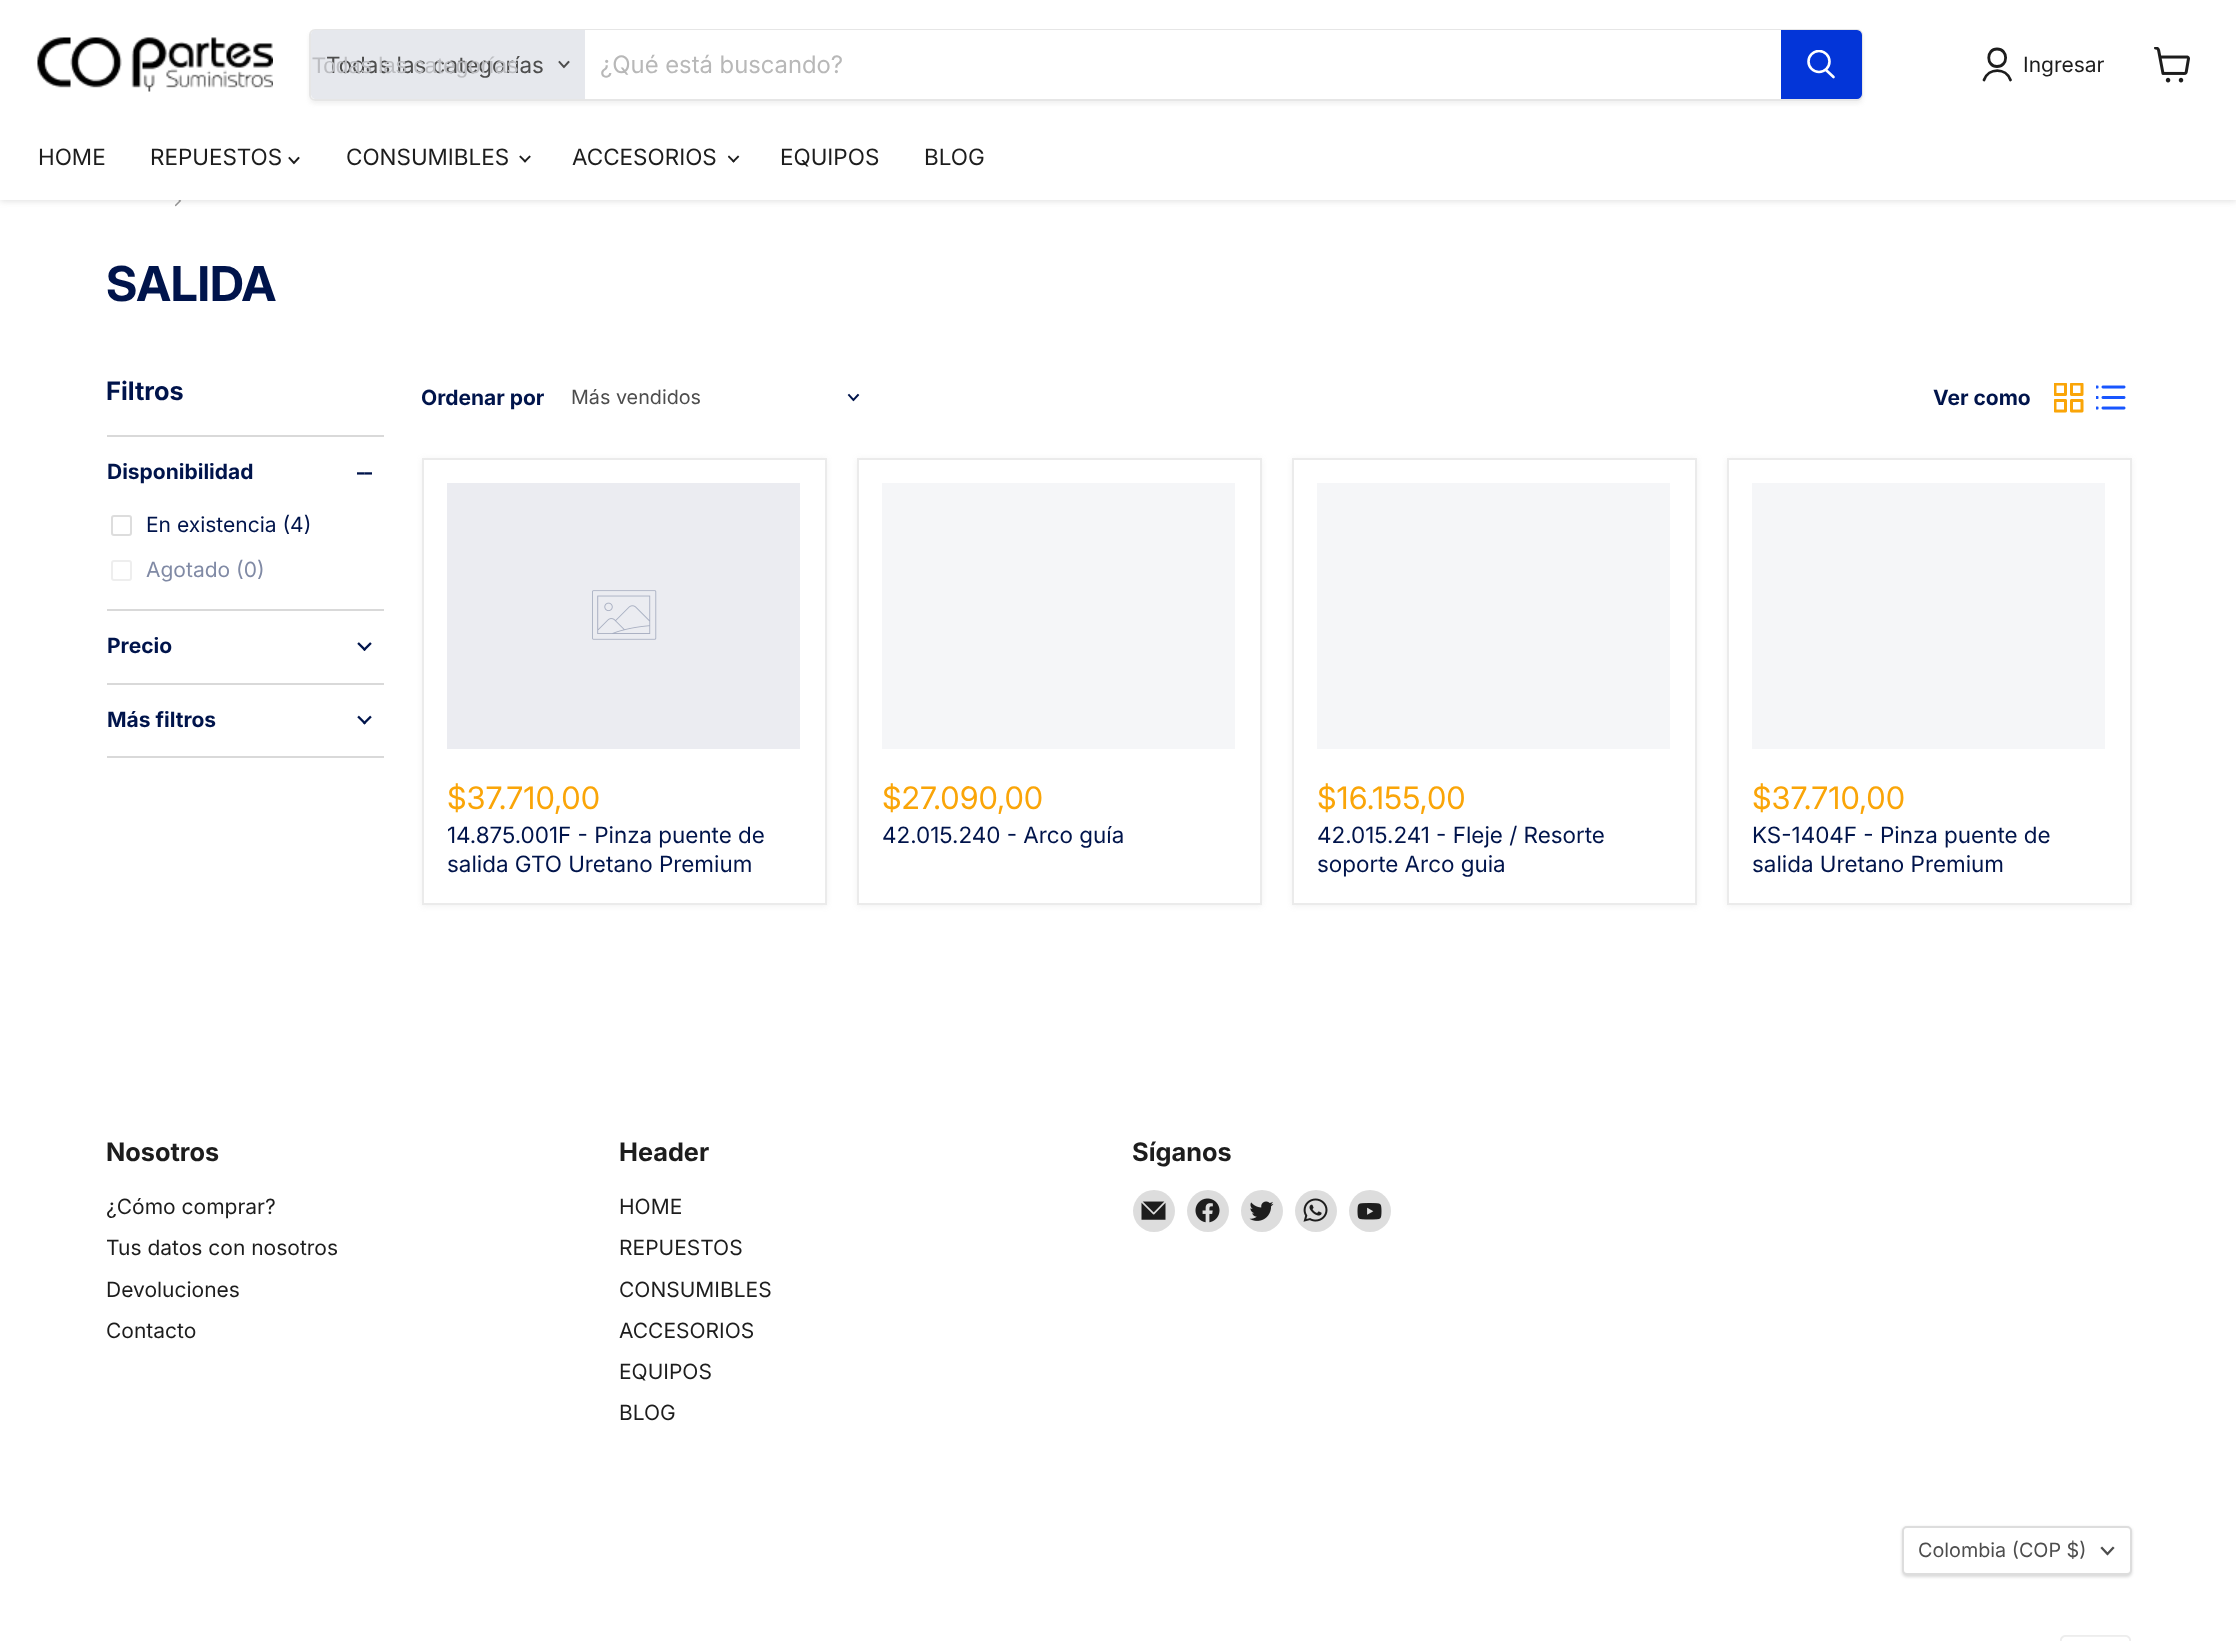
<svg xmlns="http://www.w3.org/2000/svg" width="2236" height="1641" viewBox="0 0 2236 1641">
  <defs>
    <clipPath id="clip1"><path d="M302 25H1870V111H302ZM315 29H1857C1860.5 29 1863 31.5 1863 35V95C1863 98.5 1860.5 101 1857 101H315C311.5 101 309 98.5 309 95V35C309 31.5 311.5 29 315 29Z" clip-rule="evenodd"/></clipPath>
    <clipPath id="clip2"><rect x="1806" y="50" width="30" height="31"/></clipPath>
  </defs>
  <rect width="100%" height="100%" fill="rgb(255,255,255)"/>
  <image x="175" y="200" width="7" height="7" href="pic5.png"/>
  <rect x="0" y="2" width="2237" height="199" fill="rgba(128,128,128,0.25)" filter="blur(3px)"/>
  <rect x="0" y="0" width="2236" height="200" fill="rgb(255,255,255)"/>
  <image x="37" y="37" width="236" height="55" href="pic1.png"/>
  <g clip-path="url(#clip1)">
    <rect x="309" y="32" width="1554" height="72" rx="6" fill="rgba(128,128,128,0.11)" filter="blur(2px)"/>
  </g>
  <rect x="310" y="30" width="1552" height="70" rx="5" fill="none" stroke="rgba(128,128,128,0.2)" stroke-width="2"/>
  <path d="M316 30H585V99H316C313 99 311 97 311 94V35C311 32 313 30 316 30Z" fill="rgb(230,232,237)"/>
  <text x="326" y="73" font-family="'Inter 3'" font-size="22.5" fill="rgb(77,77,77)">Todas las categorías</text>
  <text x="312" y="73" font-family="Liberation Sans" font-size="22.5" fill="rgb(188,189,193)">Todas las categorías</text>
  <path d="M564 67L568.5 62M564 67L559.5 62" fill="none" stroke="rgb(77,77,77)" stroke-width="1.9" stroke-linecap="square"/>
  <rect x="585" y="30" width="1196" height="1" fill="rgb(255,255,255)"/>
  <text x="600" y="73" font-family="'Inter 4'" font-size="24" fill="rgb(184,184,184)">¿Qué está buscando?</text>
  <path d="M1782 31H1857C1859 31 1861 33 1861 35V94C1861 96 1859 98 1857 98H1782Z" fill="rgb(3,53,216)" stroke="rgb(3,53,216)" stroke-width="2"/>
  <path d="M1833.5 77L1826 70" fill="none" stroke="rgb(255,255,255)" stroke-width="2.6" stroke-linecap="round"/>
  <g clip-path="url(#clip2)">
    <circle cx="1819" cy="61.5" r="10.5" fill="none" stroke="rgb(255,255,255)" stroke-width="2.6"/>
  </g>
  <path d="M1997 66.5C2008.5 66.5 2008.5 49 1997 49C1986 49 1986 66.5 1997 66.5ZM2010.5 80C2006 67.5 1988.5 67.5 1984 80" fill="none" stroke="rgb(29,29,29)" stroke-width="2.8" stroke-linecap="round" stroke-linejoin="round"/>
  <text x="2023" y="72" font-family="Inter" font-size="21" fill="rgb(29,29,29)">Ingresar</text>
  <image x="2154" y="47" width="36" height="36" href="pic2.png"/>
  <g font-family="'Inter 3'" font-size="22.5" fill="rgb(29,29,29)">
    <text x="38" y="165">HOME</text>
    <text x="150" y="165">REPUESTOS</text>
  </g>
  <path d="M294 163L298.5 158M294 163L289.5 158" fill="none" stroke="rgb(29,29,29)" stroke-width="1.9" stroke-linecap="square"/>
  <text x="346" y="165" font-family="'Inter 3'" font-size="22.5" fill="rgb(29,29,29)">CONSUMIBLES</text>
  <image x="519" y="155" width="12" height="8" href="pic3.png"/>
  <text x="572" y="165" font-family="'Inter 3'" font-size="22.5" fill="rgb(29,29,29)">ACCESORIOS</text>
  <image x="728" y="155" width="12" height="8" href="pic4.png"/>
  <g font-family="'Inter 3'" font-size="22.5" fill="rgb(29,29,29)">
    <text x="780" y="165">EQUIPOS</text>
    <text x="924" y="165">BLOG</text>
  </g>
  <text x="106" y="301" font-family="Inter" font-size="48" font-weight="bold" fill="rgb(0,20,75)">SALIDA</text>
  <text x="106" y="400" font-family="'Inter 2'" font-size="25.5" font-weight="bold" fill="rgb(0,20,75)">Filtros</text>
  <rect x="107" y="435" width="277" height="2" fill="rgb(217,217,217)"/>
  <text x="107" y="479" font-family="'Inter 3'" font-size="21" font-weight="bold" fill="rgb(0,20,75)">Disponibilidad</text>
  <image x="357" y="472" width="15" height="3" href="pic6.png"/>
  <rect x="112" y="516" width="19" height="19" rx="2" fill="none" stroke="rgb(221,221,221)" stroke-width="2"/>
  <text x="146" y="532" font-family="Inter" font-size="21" fill="rgb(0,20,75)">En existencia (4)</text>
  <rect x="112" y="561" width="19" height="19" rx="2" fill="none" stroke="rgb(238,238,238)" stroke-width="2"/>
  <text x="146" y="577" font-family="Inter" font-size="21" fill="rgb(128,138,165)">Agotado (0)</text>
  <rect x="107" y="609" width="277" height="2" fill="rgb(217,217,217)"/>
  <text x="107" y="653" font-family="'Inter 3'" font-size="21" font-weight="bold" fill="rgb(0,20,75)">Precio</text>
  <image x="357" y="642" width="15" height="9" href="pic7.png"/>
  <rect x="107" y="683" width="277" height="2" fill="rgb(217,217,217)"/>
  <rect x="107" y="756" width="277" height="2" fill="rgb(217,217,217)"/>
  <text x="107" y="727" font-family="'Inter 3'" font-size="21" font-weight="bold" fill="rgb(0,20,75)">Más filtros</text>
  <image x="357" y="715" width="15" height="10" href="pic8.png"/>
  <text x="421" y="405" font-family="'Inter 3'" font-size="21" font-weight="bold" fill="rgb(0,20,75)">Ordenar por</text>
  <text x="571" y="404" font-family="Inter" font-size="19.75" fill="rgb(77,77,77)">Más vendidos</text>
  <path d="M853.5 400L858 395M853.5 400L849 395" fill="none" stroke="rgb(0,20,75)" stroke-width="1.9" stroke-linecap="square"/>
  <text x="1933" y="405" font-family="'Inter 3'" font-size="21" font-weight="bold" fill="rgb(0,20,75)">Ver como</text>
  <image x="2054" y="383" width="30" height="30" href="pic9.png"/>
  <image x="2096" y="385" width="30" height="25" href="pic10.png"/>
  <rect x="422" y="459" width="405" height="447" fill="rgba(128,128,128,0.11)" filter="blur(3px)"/>
  <rect x="423" y="459" width="403" height="445" fill="rgb(255,255,255)" stroke="rgb(235,235,235)" stroke-width="2"/>
  <rect x="447" y="483" width="353" height="266" fill="rgb(235,236,241)"/>
  <image x="592" y="590" width="65" height="50" href="pic11.png"/>
  <text x="447" y="809" font-family="'Inter 2'" font-size="31" fill="rgb(250,165,8)">$37.710,00</text>
  <g font-family="'Inter 3'" font-size="22.5" fill="rgb(0,20,75)">
    <text>
      <tspan x="447" y="843">14.875.001F - Pinza puente de</tspan>
      <tspan x="447" y="872">salida GTO Uretano Premium</tspan>
    </text>
  </g>
  <rect x="857" y="459" width="405" height="447" fill="rgba(128,128,128,0.11)" filter="blur(3px)"/>
  <rect x="858" y="459" width="403" height="445" fill="rgb(255,255,255)" stroke="rgb(235,235,235)" stroke-width="2"/>
  <rect x="882" y="483" width="353" height="266" fill="rgb(245,246,248)"/>
  <text x="882" y="809" font-family="'Inter 2'" font-size="31" fill="rgb(250,165,8)">$27.090,00</text>
  <text x="882" y="843" font-family="'Inter 3'" font-size="22.5" fill="rgb(0,20,75)">42.015.240 - Arco guía</text>
  <rect x="1292" y="459" width="405" height="447" fill="rgba(128,128,128,0.11)" filter="blur(3px)"/>
  <rect x="1293" y="459" width="403" height="445" fill="rgb(255,255,255)" stroke="rgb(235,235,235)" stroke-width="2"/>
  <rect x="1317" y="483" width="353" height="266" fill="rgb(245,246,248)"/>
  <text x="1317" y="809" font-family="'Inter 2'" font-size="31" fill="rgb(250,165,8)">$16.155,00</text>
  <g font-family="'Inter 3'" font-size="22.5" fill="rgb(0,20,75)">
    <text>
      <tspan x="1317" y="843">42.015.241 - Fleje / Resorte</tspan>
      <tspan x="1317" y="872">soporte Arco guia</tspan>
    </text>
  </g>
  <rect x="1727" y="459" width="405" height="447" fill="rgba(128,128,128,0.11)" filter="blur(3px)"/>
  <rect x="1728" y="459" width="403" height="445" fill="rgb(255,255,255)" stroke="rgb(235,235,235)" stroke-width="2"/>
  <rect x="1752" y="483" width="353" height="266" fill="rgb(245,246,248)"/>
  <text x="1752" y="809" font-family="'Inter 2'" font-size="31" fill="rgb(250,165,8)">$37.710,00</text>
  <g font-family="'Inter 3'" font-size="22.5" fill="rgb(0,20,75)">
    <text>
      <tspan x="1752" y="843">KS-1404F - Pinza puente de</tspan>
      <tspan x="1752" y="872">salida Uretano Premium</tspan>
    </text>
  </g>
  <text x="106" y="1161" font-family="'Inter 2'" font-size="25.5" font-weight="bold" fill="rgb(29,29,29)">Nosotros</text>
  <g font-family="Inter" font-size="21" fill="rgb(29,29,29)">
    <text>
      <tspan x="106" y="1214">¿Cómo comprar?</tspan>
      <tspan x="106" y="1255">Tus datos con nosotros</tspan>
    </text>
    <text>
      <tspan x="106" y="1297">Devoluciones</tspan>
      <tspan x="106" y="1338">Contacto</tspan>
    </text>
  </g>
  <text x="619" y="1161" font-family="'Inter 2'" font-size="25.5" font-weight="bold" fill="rgb(29,29,29)">Header</text>
  <g font-family="Inter" font-size="21" fill="rgb(29,29,29)">
    <text>
      <tspan x="619" y="1214">HOME</tspan>
      <tspan x="619" y="1255">REPUESTOS</tspan>
    </text>
    <text>
      <tspan x="619" y="1297">CONSUMIBLES</tspan>
      <tspan x="619" y="1338">ACCESORIOS</tspan>
      <tspan x="619" y="1379">EQUIPOS</tspan>
      <tspan x="619" y="1420">BLOG</tspan>
    </text>
  </g>
  <text x="1132" y="1161" font-family="'Inter 2'" font-size="25.5" font-weight="bold" fill="rgb(29,29,29)">Síganos</text>
  <circle cx="1154" cy="1211" r="21" fill="rgb(221,221,221)"/>
  <image x="1141" y="1201" width="25" height="19" href="pic12.png"/>
  <circle cx="1208" cy="1211" r="21" fill="rgb(221,221,221)"/>
  <image x="1195" y="1198" width="25" height="25" href="pic13.png"/>
  <circle cx="1262" cy="1211" r="21" fill="rgb(221,221,221)"/>
  <image x="1249" y="1201" width="25" height="20" href="pic14.png"/>
  <circle cx="1316" cy="1211" r="21" fill="rgb(221,221,221)"/>
  <image x="1303" y="1198" width="25" height="24" href="pic15.png"/>
  <circle cx="1370" cy="1211" r="21" fill="rgb(221,221,221)"/>
  <image x="1357" y="1203" width="25" height="17" href="pic16.png"/>
  <rect x="1902" y="1527" width="230" height="50" rx="5" fill="rgba(0,0,0,0.15)" filter="blur(1.5px)"/>
  <rect x="1903" y="1527" width="228" height="47" rx="4" fill="rgb(255,255,255)" stroke="rgb(221,221,221)" stroke-width="2"/>
  <text x="1918" y="1557" font-family="Inter" font-size="19.75" fill="rgb(77,77,77)">Colombia (COP $)</text>
  <path d="M2107.5 1554L2113 1548M2107.5 1554L2102 1548" fill="none" stroke="rgb(77,77,77)" stroke-width="2.3" stroke-linecap="square"/>
  <image x="2060" y="1635" width="71" height="6" href="pic17.png"/>
</svg>
